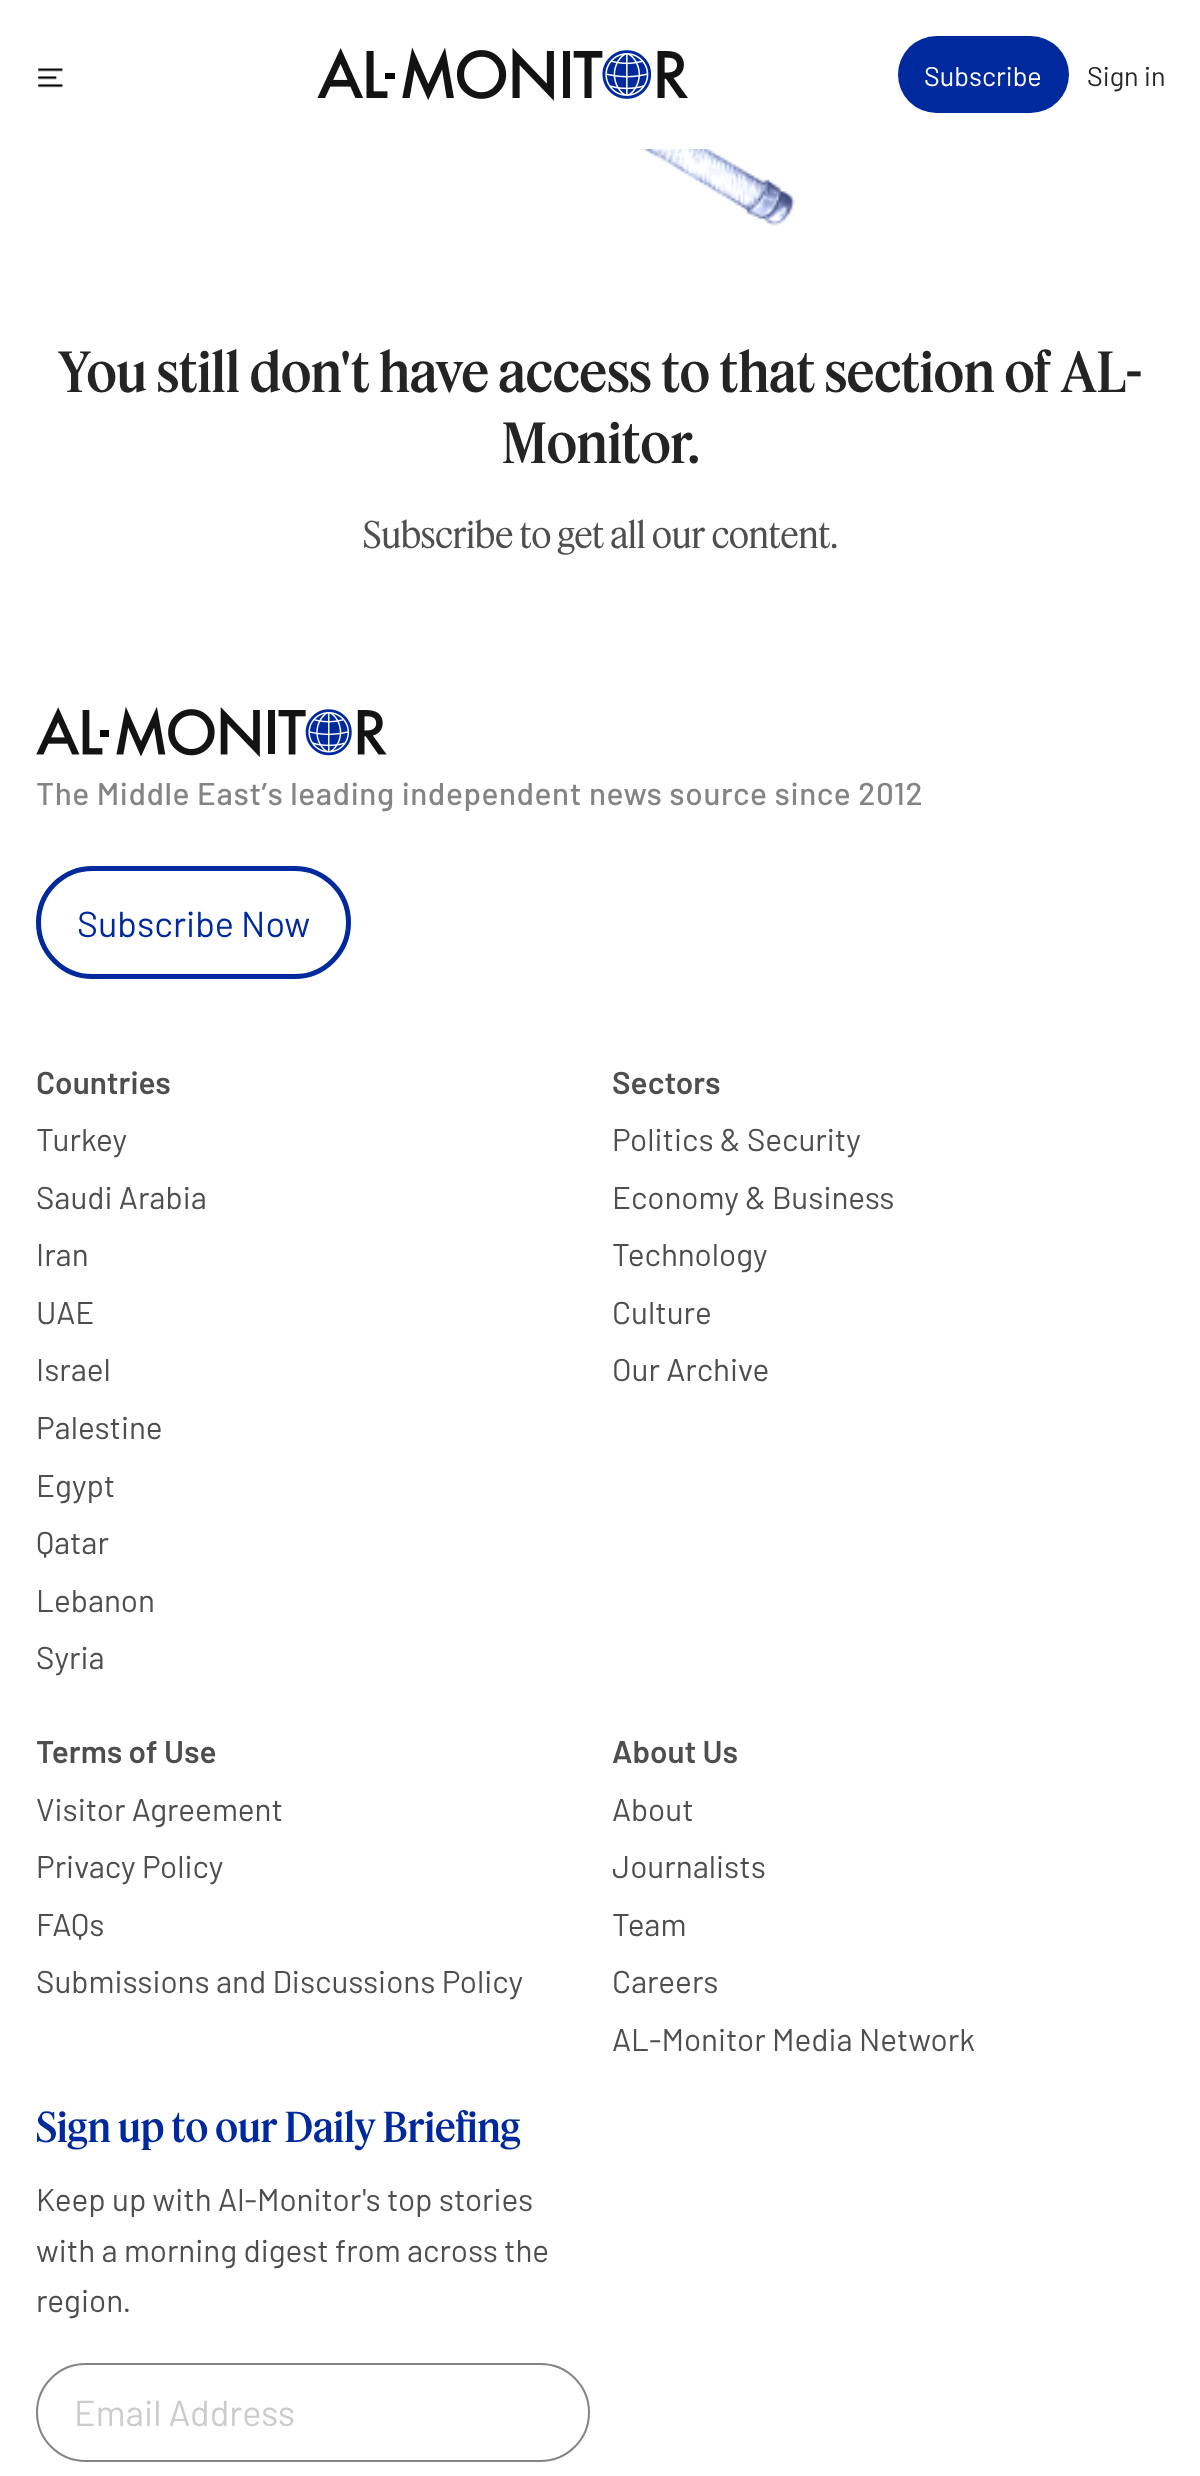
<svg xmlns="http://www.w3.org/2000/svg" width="1200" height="2476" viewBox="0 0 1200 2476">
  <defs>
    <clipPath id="clip1"><rect x="36" y="2102" width="554" height="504" rx="27"/></clipPath>
  </defs>
  <rect width="100%" height="100%" fill="rgb(255,255,255)"/>
  <image x="38" y="68" width="25" height="20" href="pic1.png"/>
  <image x="317" y="47" width="371" height="54" href="pic2.png"/>
  <rect x="898" y="36" width="171" height="77" rx="38.5" fill="rgb(0,41,157)"/>
  <text x="924" y="86" font-family="Barlow" font-size="27" fill="rgb(255,255,255)">Subscribe</text>
  <text x="1087" y="86" font-family="Barlow" font-size="27" fill="rgb(36,36,36)">Sign in</text>
  <image x="402" y="149" width="393" height="77" href="pic3.png"/>
  <g font-family="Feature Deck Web" font-size="54" font-weight="500" fill="rgb(36,36,36)">
    <text x="58" y="392">You still don't have access to that section of AL-</text>
    <text x="502" y="463">Monitor.</text>
  </g>
  <text x="363" y="548" font-family="Feature Deck Web" font-size="36" fill="rgb(78,78,77)">Subscribe to get all our content.</text>
  <image x="36" y="707" width="351" height="50" href="pic4.png"/>
  <text x="36" y="805" font-family="Barlow" font-size="31.5" font-weight="500" letter-spacing="0.63" fill="rgb(132,132,132)">The Middle Eastʼs leading independent news source since 2012</text>
  <rect x="38.5" y="868.5" width="310" height="108" rx="54" fill="none" stroke="rgb(0,41,157)" stroke-width="5"/>
  <text x="77" y="937" font-family="Barlow" font-size="36" fill="rgb(0,41,157)">Subscribe Now</text>
  <text x="36" y="1094" font-family="Barlow" font-size="31.5" font-weight="600" fill="rgb(78,78,77)">Countries</text>
  <g font-family="Barlow" font-size="31.5" fill="rgb(78,78,77)">
    <text>
      <tspan x="36" y="1151">Turkey</tspan>
      <tspan x="36" y="1209">Saudi Arabia</tspan>
      <tspan x="36" y="1266">Iran</tspan>
      <tspan x="36" y="1324">UAE</tspan>
      <tspan x="36" y="1381">Israel</tspan>
      <tspan x="36" y="1439">Palestine</tspan>
      <tspan x="36" y="1497">Egypt</tspan>
      <tspan x="36" y="1554">Qatar</tspan>
      <tspan x="36" y="1612">Lebanon</tspan>
      <tspan x="36" y="1669">Syria</tspan>
    </text>
  </g>
  <text x="612" y="1094" font-family="Barlow" font-size="31.5" font-weight="600" fill="rgb(78,78,77)">Sectors</text>
  <g font-family="Barlow" font-size="31.5" fill="rgb(78,78,77)">
    <text>
      <tspan x="612" y="1151">Politics &amp; Security</tspan>
      <tspan x="612" y="1209">Economy &amp; Business</tspan>
      <tspan x="612" y="1266">Technology</tspan>
      <tspan x="612" y="1324">Culture</tspan>
      <tspan x="612" y="1381">Our Archive</tspan>
    </text>
  </g>
  <text x="36" y="1763" font-family="Barlow" font-size="31.5" font-weight="600" fill="rgb(78,78,77)">Terms of Use</text>
  <g font-family="Barlow" font-size="31.5" fill="rgb(78,78,77)">
    <text>
      <tspan x="36" y="1821">Visitor Agreement</tspan>
      <tspan x="36" y="1878">Privacy Policy</tspan>
      <tspan x="36" y="1936">FAQs</tspan>
      <tspan x="36" y="1993">Submissions and Discussions Policy</tspan>
    </text>
  </g>
  <text x="612" y="1763" font-family="Barlow" font-size="31.5" font-weight="600" fill="rgb(78,78,77)">About Us</text>
  <g font-family="Barlow" font-size="31.5" fill="rgb(78,78,77)">
    <text>
      <tspan x="612" y="1821">About</tspan>
      <tspan x="612" y="1878">Journalists</tspan>
      <tspan x="612" y="1936">Team</tspan>
      <tspan x="612" y="1993">Careers</tspan>
      <tspan x="612" y="2051">AL-Monitor Media Network</tspan>
    </text>
  </g>
  <g clip-path="url(#clip1)">
    <text x="36" y="2142" font-family="Feature Deck Web" font-size="40.5" font-weight="500" fill="rgb(0,41,157)">Sign up to our Daily Briefing</text>
  </g>
  <g font-family="Barlow" font-size="31.5" fill="rgb(78,78,77)">
    <text>
      <tspan x="36" y="2211">Keep up with Al-Monitor's top stories</tspan>
      <tspan x="36" y="2262">with a morning digest from across the</tspan>
      <tspan x="36" y="2312">region.</tspan>
    </text>
  </g>
  <rect x="37" y="2364" width="552" height="97" rx="48.5" fill="none" stroke="rgb(132,132,132)" stroke-width="2"/>
  <text x="74" y="2426" font-family="Barlow" font-size="36" fill="rgb(204,204,204)">Email Address</text>
</svg>
